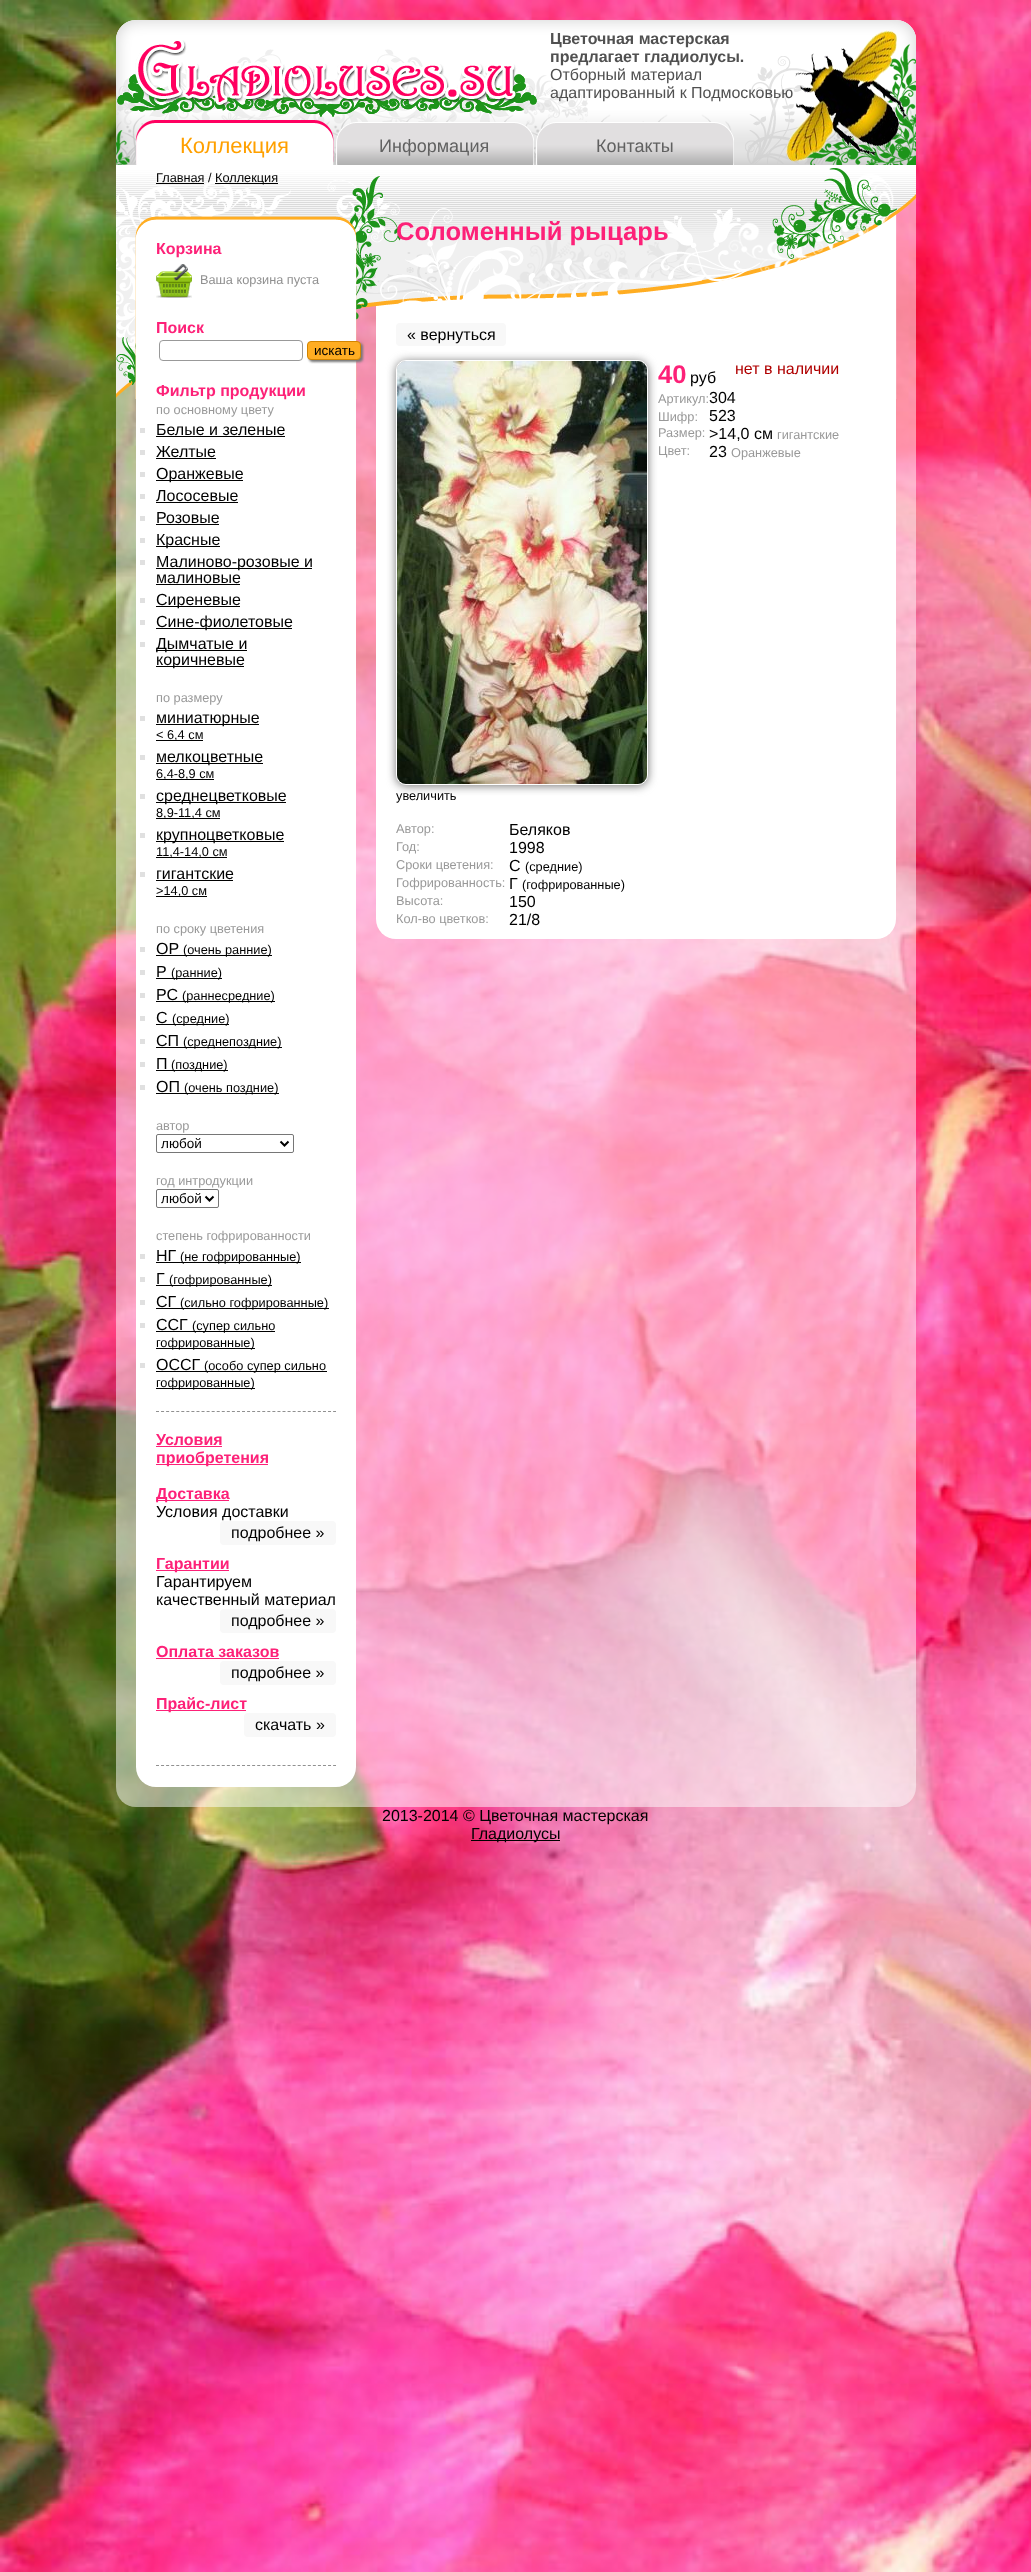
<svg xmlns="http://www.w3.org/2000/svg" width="1031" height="2572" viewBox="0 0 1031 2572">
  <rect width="100%" height="100%" fill="rgb(255,255,255)"/>
  <image x="0" y="0" width="1031" height="2572" href="pic1.png"/>
  <image x="116" y="20" width="800" height="145" href="pic2.png"/>
  <image x="117" y="41" width="420" height="76" href="pic3.png"/>
  <image x="117" y="40" width="420" height="77" href="pic4.png"/>
  <image x="117" y="42" width="420" height="75" href="pic5.png"/>
  <g font-family="Liberation Sans" font-size="16" font-weight="bold" fill="rgb(80,80,80)">
    <text>
      <tspan x="550" y="44">Цветочная мастерская</tspan>
      <tspan x="550" y="62">предлагает гладиолусы.</tspan>
    </text>
  </g>
  <text x="550" y="80" font-family="Liberation Sans" font-size="16" fill="rgb(80,80,80)">Отборный материал</text>
  <image x="786" y="30" width="122" height="132" href="pic6.png"/>
  <text x="550" y="98" font-family="Liberation Sans" font-size="16" fill="rgb(80,80,80)">адаптированный к Подмосковью</text>
  <image x="136" y="120" width="198" height="45" href="pic7.png"/>
  <text x="180" y="153" font-family="Liberation Sans" font-size="22" fill="rgb(255,160,0)">Коллекция</text>
  <image x="336" y="122" width="198" height="43" href="pic8.png"/>
  <text x="379" y="152" font-family="Liberation Sans" font-size="18" fill="rgb(97,97,97)">Информация</text>
  <image x="536" y="122" width="198" height="43" href="pic9.png"/>
  <text x="596" y="152" font-family="Liberation Sans" font-size="18" fill="rgb(97,97,97)">Контакты</text>
  <image x="116" y="165" width="800" height="1642" href="pic10.png"/>
  <text x="156" y="182" font-family="Liberation Sans" font-size="12.75" fill="rgb(0,0,0)">Главная /</text>
  <rect x="156" y="183" width="48" height="1" fill="rgb(0,0,0)"/>
  <rect x="215" y="183" width="63" height="1" fill="rgb(0,0,0)"/>
  <text x="215" y="182" font-family="Liberation Sans" font-size="12.75" fill="rgb(0,0,0)">Коллекция</text>
  <rect x="136" y="220" width="220" height="1567" rx="20" fill="rgb(255,255,255)"/>
  <text x="156" y="254" font-family="Liberation Sans" font-size="16" font-weight="bold" fill="rgb(253,33,120)">Корзина</text>
  <image x="156" y="264" width="36" height="34" href="pic11.png"/>
  <text x="200" y="284" font-family="Liberation Sans" font-size="12.75" fill="rgb(144,144,144)">Ваша корзина пуста</text>
  <text x="156" y="333" font-family="Liberation Sans" font-size="16" font-weight="bold" fill="rgb(253,33,120)">Поиск</text>
  <rect x="159.5" y="340.5" width="143" height="20" rx="3.5" fill="none" stroke="rgb(153,153,153)"/>
  <rect x="309" y="343" width="54" height="19" rx="4" fill="rgb(119,119,119)" filter="blur(1px)"/>
  <rect x="307.5" y="341.5" width="53" height="18" rx="3.5" fill="rgb(255,173,34)" stroke="rgb(211,133,0)"/>
  <text x="314" y="355" font-family="Liberation Sans" font-size="13.5" fill="rgb(0,0,0)">искать</text>
  <text x="156" y="396" font-family="Liberation Sans" font-size="16" font-weight="bold" fill="rgb(253,33,120)">Фильтр продукции</text>
  <text x="156" y="414" font-family="Liberation Sans" font-size="12.75" fill="rgb(153,153,153)">по основному цвету</text>
  <rect x="140" y="428" width="5" height="5" fill="rgb(224,224,224)"/>
  <text x="156" y="435" font-family="Liberation Sans" font-size="16" fill="rgb(0,0,0)">Белые и зеленые</text>
  <rect x="156" y="436" width="129" height="1" fill="rgb(0,0,0)"/>
  <rect x="140" y="450" width="5" height="5" fill="rgb(224,224,224)"/>
  <text x="156" y="457" font-family="Liberation Sans" font-size="16" fill="rgb(0,0,0)">Желтые</text>
  <rect x="156" y="458" width="60" height="1" fill="rgb(0,0,0)"/>
  <rect x="140" y="472" width="5" height="5" fill="rgb(224,224,224)"/>
  <rect x="156" y="480" width="87" height="1" fill="rgb(0,0,0)"/>
  <text x="156" y="479" font-family="Liberation Sans" font-size="16" fill="rgb(0,0,0)">Оранжевые</text>
  <rect x="140" y="494" width="5" height="5" fill="rgb(224,224,224)"/>
  <text x="156" y="501" font-family="Liberation Sans" font-size="16" fill="rgb(0,0,0)">Лососевые</text>
  <rect x="156" y="502" width="82" height="1" fill="rgb(0,0,0)"/>
  <rect x="140" y="516" width="5" height="5" fill="rgb(224,224,224)"/>
  <text x="156" y="523" font-family="Liberation Sans" font-size="16" fill="rgb(0,0,0)">Розовые</text>
  <rect x="156" y="524" width="63" height="1" fill="rgb(0,0,0)"/>
  <rect x="140" y="538" width="5" height="5" fill="rgb(224,224,224)"/>
  <rect x="156" y="546" width="64" height="1" fill="rgb(0,0,0)"/>
  <text x="156" y="545" font-family="Liberation Sans" font-size="16" fill="rgb(0,0,0)">Красные</text>
  <rect x="140" y="560" width="5" height="5" fill="rgb(224,224,224)"/>
  <rect x="156" y="568" width="156" height="1" fill="rgb(0,0,0)"/>
  <g font-family="Liberation Sans" font-size="16" fill="rgb(0,0,0)">
    <text>
      <tspan x="156" y="567">Малиново-розовые и</tspan>
      <tspan x="156" y="583">малиновые</tspan>
    </text>
  </g>
  <rect x="156" y="584" width="84" height="1" fill="rgb(0,0,0)"/>
  <rect x="140" y="598" width="5" height="5" fill="rgb(224,224,224)"/>
  <rect x="156" y="606" width="84" height="1" fill="rgb(0,0,0)"/>
  <text x="156" y="605" font-family="Liberation Sans" font-size="16" fill="rgb(0,0,0)">Сиреневые</text>
  <rect x="140" y="620" width="5" height="5" fill="rgb(224,224,224)"/>
  <rect x="156" y="628" width="136" height="1" fill="rgb(0,0,0)"/>
  <text x="156" y="627" font-family="Liberation Sans" font-size="16" fill="rgb(0,0,0)">Сине-фиолетовые</text>
  <rect x="140" y="642" width="5" height="5" fill="rgb(224,224,224)"/>
  <rect x="156" y="650" width="91" height="1" fill="rgb(0,0,0)"/>
  <text x="156" y="649" font-family="Liberation Sans" font-size="16" fill="rgb(0,0,0)">Дымчатые и</text>
  <rect x="156" y="666" width="88" height="1" fill="rgb(0,0,0)"/>
  <text x="156" y="665" font-family="Liberation Sans" font-size="16" fill="rgb(0,0,0)">коричневые</text>
  <text x="156" y="702" font-family="Liberation Sans" font-size="12.75" fill="rgb(153,153,153)">по размеру</text>
  <rect x="140" y="716" width="5" height="5" fill="rgb(224,224,224)"/>
  <rect x="156" y="724" width="103" height="1" fill="rgb(0,0,0)"/>
  <text x="156" y="723" font-family="Liberation Sans" font-size="16" fill="rgb(0,0,0)">миниатюрные</text>
  <rect x="156" y="740" width="47" height="1" fill="rgb(0,0,0)"/>
  <text x="156" y="739" font-family="Liberation Sans" font-size="12.75" fill="rgb(0,0,0)">&lt; 6,4 см</text>
  <rect x="140" y="755" width="5" height="5" fill="rgb(224,224,224)"/>
  <rect x="156" y="763" width="107" height="1" fill="rgb(0,0,0)"/>
  <text x="156" y="762" font-family="Liberation Sans" font-size="16" fill="rgb(0,0,0)">мелкоцветные</text>
  <rect x="156" y="779" width="58" height="1" fill="rgb(0,0,0)"/>
  <text x="156" y="778" font-family="Liberation Sans" font-size="12.75" fill="rgb(0,0,0)">6,4-8,9 см</text>
  <rect x="140" y="794" width="5" height="5" fill="rgb(224,224,224)"/>
  <rect x="156" y="802" width="130" height="1" fill="rgb(0,0,0)"/>
  <text x="156" y="801" font-family="Liberation Sans" font-size="16" fill="rgb(0,0,0)">среднецветковые</text>
  <rect x="156" y="818" width="64" height="1" fill="rgb(0,0,0)"/>
  <text x="156" y="817" font-family="Liberation Sans" font-size="12.75" fill="rgb(0,0,0)">8,9-11,4 см</text>
  <rect x="140" y="833" width="5" height="5" fill="rgb(224,224,224)"/>
  <rect x="156" y="841" width="128" height="1" fill="rgb(0,0,0)"/>
  <text x="156" y="840" font-family="Liberation Sans" font-size="16" fill="rgb(0,0,0)">крупноцветковые</text>
  <rect x="156" y="857" width="71" height="1" fill="rgb(0,0,0)"/>
  <text x="156" y="856" font-family="Liberation Sans" font-size="12.75" fill="rgb(0,0,0)">11,4-14,0 см</text>
  <rect x="140" y="872" width="5" height="5" fill="rgb(224,224,224)"/>
  <text x="156" y="879" font-family="Liberation Sans" font-size="16" fill="rgb(0,0,0)">гигантские</text>
  <rect x="156" y="880" width="77" height="1" fill="rgb(0,0,0)"/>
  <rect x="156" y="896" width="51" height="1" fill="rgb(0,0,0)"/>
  <text x="156" y="895" font-family="Liberation Sans" font-size="12.75" fill="rgb(0,0,0)">&gt;14,0 см</text>
  <text x="156" y="933" font-family="Liberation Sans" font-size="12.75" fill="rgb(153,153,153)">по сроку цветения</text>
  <rect x="140" y="947" width="5" height="5" fill="rgb(224,224,224)"/>
  <text x="156" y="954" font-family="Liberation Sans" font-size="16" fill="rgb(0,0,0)">ОР</text>
  <rect x="156" y="955" width="116" height="1" fill="rgb(0,0,0)"/>
  <text x="183" y="954" font-family="Liberation Sans" font-size="12.75" fill="rgb(0,0,0)">(очень ранние)</text>
  <rect x="140" y="970" width="5" height="5" fill="rgb(224,224,224)"/>
  <text x="156" y="977" font-family="Liberation Sans" font-size="16" fill="rgb(0,0,0)">Р</text>
  <rect x="156" y="978" width="66" height="1" fill="rgb(0,0,0)"/>
  <text x="171" y="977" font-family="Liberation Sans" font-size="12.75" fill="rgb(0,0,0)">(ранние)</text>
  <rect x="140" y="993" width="5" height="5" fill="rgb(224,224,224)"/>
  <text x="156" y="1000" font-family="Liberation Sans" font-size="16" fill="rgb(0,0,0)">РС</text>
  <rect x="156" y="1001" width="119" height="1" fill="rgb(0,0,0)"/>
  <text x="182" y="1000" font-family="Liberation Sans" font-size="12.75" fill="rgb(0,0,0)">(раннесредние)</text>
  <rect x="140" y="1016" width="5" height="5" fill="rgb(224,224,224)"/>
  <text x="156" y="1023" font-family="Liberation Sans" font-size="16" fill="rgb(0,0,0)">С</text>
  <rect x="156" y="1024" width="73" height="1" fill="rgb(0,0,0)"/>
  <text x="172" y="1023" font-family="Liberation Sans" font-size="12.75" fill="rgb(0,0,0)">(средние)</text>
  <rect x="140" y="1039" width="5" height="5" fill="rgb(224,224,224)"/>
  <text x="156" y="1046" font-family="Liberation Sans" font-size="16" fill="rgb(0,0,0)">СП</text>
  <rect x="156" y="1047" width="126" height="1" fill="rgb(0,0,0)"/>
  <text x="183" y="1046" font-family="Liberation Sans" font-size="12.75" fill="rgb(0,0,0)">(среднепоздние)</text>
  <rect x="140" y="1062" width="5" height="5" fill="rgb(224,224,224)"/>
  <text x="156" y="1069" font-family="Liberation Sans" font-size="16" fill="rgb(0,0,0)">П</text>
  <rect x="156" y="1070" width="72" height="1" fill="rgb(0,0,0)"/>
  <text x="171" y="1069" font-family="Liberation Sans" font-size="12.75" fill="rgb(0,0,0)">(поздние)</text>
  <rect x="140" y="1085" width="5" height="5" fill="rgb(224,224,224)"/>
  <text x="156" y="1092" font-family="Liberation Sans" font-size="16" fill="rgb(0,0,0)">ОП</text>
  <rect x="156" y="1093" width="123" height="1" fill="rgb(0,0,0)"/>
  <text x="184" y="1092" font-family="Liberation Sans" font-size="12.75" fill="rgb(0,0,0)">(очень поздние)</text>
  <text x="156" y="1130" font-family="Liberation Sans" font-size="12.75" fill="rgb(153,153,153)">автор</text>
  <rect x="156.5" y="1134.5" width="137" height="18" rx="1.5" fill="none" stroke="rgb(118,118,118)"/>
  <path d="M280.5 1141.5L284.5 1145.5L288.5 1141.5" fill="none" stroke="rgb(0,0,0)" stroke-width="2"/>
  <text x="161" y="1148" font-family="Liberation Sans" font-size="13.5" fill="rgb(0,0,0)">любой</text>
  <text x="156" y="1185" font-family="Liberation Sans" font-size="12.75" fill="rgb(153,153,153)">год интродукции</text>
  <rect x="156.5" y="1189.5" width="62" height="18" rx="1.5" fill="none" stroke="rgb(118,118,118)"/>
  <path d="M205.5 1196.5L209.5 1200.5L213.5 1196.5" fill="none" stroke="rgb(0,0,0)" stroke-width="2"/>
  <text x="161" y="1203" font-family="Liberation Sans" font-size="13.5" fill="rgb(0,0,0)">любой</text>
  <text x="156" y="1240" font-family="Liberation Sans" font-size="12.75" fill="rgb(153,153,153)">степень гофрированности</text>
  <rect x="140" y="1254" width="5" height="5" fill="rgb(224,224,224)"/>
  <text x="156" y="1261" font-family="Liberation Sans" font-size="16" fill="rgb(0,0,0)">НГ</text>
  <rect x="156" y="1262" width="145" height="1" fill="rgb(0,0,0)"/>
  <text x="180" y="1261" font-family="Liberation Sans" font-size="12.75" fill="rgb(0,0,0)">(не гофрированные)</text>
  <rect x="140" y="1277" width="5" height="5" fill="rgb(224,224,224)"/>
  <text x="156" y="1284" font-family="Liberation Sans" font-size="16" fill="rgb(0,0,0)">Г</text>
  <rect x="156" y="1285" width="116" height="1" fill="rgb(0,0,0)"/>
  <text x="169" y="1284" font-family="Liberation Sans" font-size="12.75" fill="rgb(0,0,0)">(гофрированные)</text>
  <rect x="140" y="1300" width="5" height="5" fill="rgb(224,224,224)"/>
  <text x="156" y="1307" font-family="Liberation Sans" font-size="16" fill="rgb(0,0,0)">СГ</text>
  <rect x="156" y="1308" width="173" height="1" fill="rgb(0,0,0)"/>
  <text x="180" y="1307" font-family="Liberation Sans" font-size="12.75" fill="rgb(0,0,0)">(сильно гофрированные)</text>
  <rect x="140" y="1323" width="5" height="5" fill="rgb(224,224,224)"/>
  <text x="156" y="1330" font-family="Liberation Sans" font-size="16" fill="rgb(0,0,0)">ССГ</text>
  <rect x="156" y="1331" width="119" height="1" fill="rgb(0,0,0)"/>
  <text x="192" y="1330" font-family="Liberation Sans" font-size="12.75" fill="rgb(0,0,0)">(супер сильно</text>
  <rect x="156" y="1348" width="99" height="1" fill="rgb(0,0,0)"/>
  <text x="156" y="1347" font-family="Liberation Sans" font-size="12.75" fill="rgb(0,0,0)">гофрированные)</text>
  <rect x="140" y="1363" width="5" height="5" fill="rgb(224,224,224)"/>
  <text x="156" y="1370" font-family="Liberation Sans" font-size="16" fill="rgb(0,0,0)">ОССГ</text>
  <rect x="156" y="1371" width="171" height="1" fill="rgb(0,0,0)"/>
  <text x="204" y="1370" font-family="Liberation Sans" font-size="12.75" fill="rgb(0,0,0)">(особо супер сильно</text>
  <rect x="156" y="1388" width="99" height="1" fill="rgb(0,0,0)"/>
  <text x="156" y="1387" font-family="Liberation Sans" font-size="12.75" fill="rgb(0,0,0)">гофрированные)</text>
  <path d="M156 1411.5H336" fill="none" stroke="rgb(144,144,144)" stroke-dasharray="3 2.06"/>
  <text x="156" y="1445" font-family="Liberation Sans" font-size="16" font-weight="bold" fill="rgb(253,33,120)">Условия</text>
  <rect x="156" y="1446" width="66" height="1" fill="rgb(253,33,120)"/>
  <rect x="156" y="1464" width="112" height="1" fill="rgb(253,33,120)"/>
  <text x="156" y="1463" font-family="Liberation Sans" font-size="16" font-weight="bold" fill="rgb(253,33,120)">приобретения</text>
  <rect x="156" y="1500" width="73" height="1" fill="rgb(253,33,120)"/>
  <text x="156" y="1499" font-family="Liberation Sans" font-size="16" font-weight="bold" fill="rgb(253,33,120)">Доставка</text>
  <text x="156" y="1517" font-family="Liberation Sans" font-size="16" fill="rgb(0,0,0)">Условия доставки</text>
  <rect x="220" y="1521" width="116" height="24" rx="4" fill="rgb(248,248,248)"/>
  <text x="231" y="1538" font-family="Liberation Sans" font-size="16" fill="rgb(0,0,0)">подробнее »</text>
  <rect x="156" y="1570" width="73" height="1" fill="rgb(253,33,120)"/>
  <text x="156" y="1569" font-family="Liberation Sans" font-size="16" font-weight="bold" fill="rgb(253,33,120)">Гарантии</text>
  <g font-family="Liberation Sans" font-size="16" fill="rgb(0,0,0)">
    <text>
      <tspan x="156" y="1587">Гарантируем</tspan>
      <tspan x="156" y="1605">качественный материал</tspan>
    </text>
  </g>
  <rect x="220" y="1609" width="116" height="24" rx="4" fill="rgb(248,248,248)"/>
  <text x="231" y="1626" font-family="Liberation Sans" font-size="16" fill="rgb(0,0,0)">подробнее »</text>
  <text x="156" y="1657" font-family="Liberation Sans" font-size="16" font-weight="bold" fill="rgb(253,33,120)">Оплата заказов</text>
  <rect x="156" y="1658" width="123" height="1" fill="rgb(253,33,120)"/>
  <rect x="220" y="1661" width="116" height="24" rx="4" fill="rgb(248,248,248)"/>
  <text x="231" y="1678" font-family="Liberation Sans" font-size="16" fill="rgb(0,0,0)">подробнее »</text>
  <rect x="156" y="1710" width="90" height="1" fill="rgb(253,33,120)"/>
  <text x="156" y="1709" font-family="Liberation Sans" font-size="16" font-weight="bold" fill="rgb(253,33,120)">Прайс-лист</text>
  <rect x="244" y="1713" width="92" height="24" rx="4" fill="rgb(248,248,248)"/>
  <text x="255" y="1730" font-family="Liberation Sans" font-size="16" fill="rgb(0,0,0)">скачать »</text>
  <path d="M156 1765.5H336" fill="none" stroke="rgb(144,144,144)" stroke-dasharray="3 2.06"/>
  <text x="396" y="240" font-family="Liberation Sans" font-size="25.6" font-weight="bold" fill="rgb(253,33,120)">Соломенный рыцарь</text>
  <rect x="376" y="326" width="520" height="613" rx="20" fill="rgb(255,255,255)"/>
  <rect x="396" y="323" width="110" height="23" rx="4" fill="rgb(248,248,248)"/>
  <text x="407" y="340" font-family="Liberation Sans" font-size="16" fill="rgb(0,0,0)">« вернуться</text>
  <rect x="396" y="361" width="252" height="425" rx="10" fill="rgb(119,119,119)" filter="blur(5px)"/>
  <text x="658" y="383" font-family="Liberation Sans" font-size="25.6" font-weight="bold" fill="rgb(253,33,120)">40</text>
  <text x="735" y="374" font-family="Liberation Sans" font-size="16" fill="rgb(176,0,0)">нет в наличии</text>
  <text x="690" y="383" font-family="Liberation Sans" font-size="16" fill="rgb(0,0,0)">руб</text>
  <text x="658" y="403" font-family="Liberation Sans" font-size="12.75" fill="rgb(153,153,153)">Артикул:</text>
  <text x="709" y="403" font-family="Liberation Sans" font-size="16" fill="rgb(0,0,0)">304</text>
  <text x="658" y="421" font-family="Liberation Sans" font-size="12.75" fill="rgb(153,153,153)">Шифр:</text>
  <text x="709" y="421" font-family="Liberation Sans" font-size="16" fill="rgb(0,0,0)">523</text>
  <text x="658" y="437" font-family="Liberation Sans" font-size="12.75" fill="rgb(153,153,153)">Размер:</text>
  <text x="709" y="439" font-family="Liberation Sans" font-size="16" fill="rgb(0,0,0)">&gt;14,0 см</text>
  <g font-family="Liberation Sans" font-size="12.75" fill="rgb(153,153,153)">
    <text x="777" y="439">гигантские</text>
    <text x="658" y="455">Цвет:</text>
  </g>
  <text x="709" y="457" font-family="Liberation Sans" font-size="16" fill="rgb(0,0,0)">23</text>
  <text x="731" y="457" font-family="Liberation Sans" font-size="12.75" fill="rgb(153,153,153)">Оранжевые</text>
  <rect x="396.5" y="360.5" width="251" height="424" rx="9.5" fill="none" stroke="rgb(255,255,255)"/>
  <image x="397" y="361" width="250" height="423" href="pic12.png"/>
  <text x="396" y="800" font-family="Liberation Sans" font-size="12.75" fill="rgb(0,0,0)">увеличить</text>
  <text x="396" y="833" font-family="Liberation Sans" font-size="12.75" fill="rgb(153,153,153)">Автор:</text>
  <text x="509" y="835" font-family="Liberation Sans" font-size="16" fill="rgb(0,0,0)">Беляков</text>
  <text x="396" y="851" font-family="Liberation Sans" font-size="12.75" fill="rgb(153,153,153)">Год:</text>
  <text x="509" y="853" font-family="Liberation Sans" font-size="16" fill="rgb(0,0,0)">1998</text>
  <text x="396" y="869" font-family="Liberation Sans" font-size="12.75" fill="rgb(153,153,153)">Сроки цветения:</text>
  <text x="509" y="871" font-family="Liberation Sans" font-size="16" fill="rgb(0,0,0)">С</text>
  <text x="525" y="871" font-family="Liberation Sans" font-size="12.75" fill="rgb(0,0,0)">(средние)</text>
  <text x="396" y="887" font-family="Liberation Sans" font-size="12.75" fill="rgb(153,153,153)">Гофрированность:</text>
  <text x="509" y="889" font-family="Liberation Sans" font-size="16" fill="rgb(0,0,0)">Г</text>
  <text x="522" y="889" font-family="Liberation Sans" font-size="12.75" fill="rgb(0,0,0)">(гофрированные)</text>
  <text x="396" y="905" font-family="Liberation Sans" font-size="12.75" fill="rgb(153,153,153)">Высота:</text>
  <text x="509" y="907" font-family="Liberation Sans" font-size="16" fill="rgb(0,0,0)">150</text>
  <text x="396" y="923" font-family="Liberation Sans" font-size="12.75" fill="rgb(153,153,153)">Кол-во цветков:</text>
  <g font-family="Liberation Sans" font-size="16" fill="rgb(0,0,0)">
    <text x="509" y="925">21/8</text>
    <text x="382" y="1821">2013-2014 © Цветочная мастерская</text>
  </g>
  <rect x="471" y="1840" width="89" height="1" fill="rgb(0,0,0)"/>
  <text x="471" y="1839" font-family="Liberation Sans" font-size="16" fill="rgb(0,0,0)">Гладиолусы</text>
</svg>
